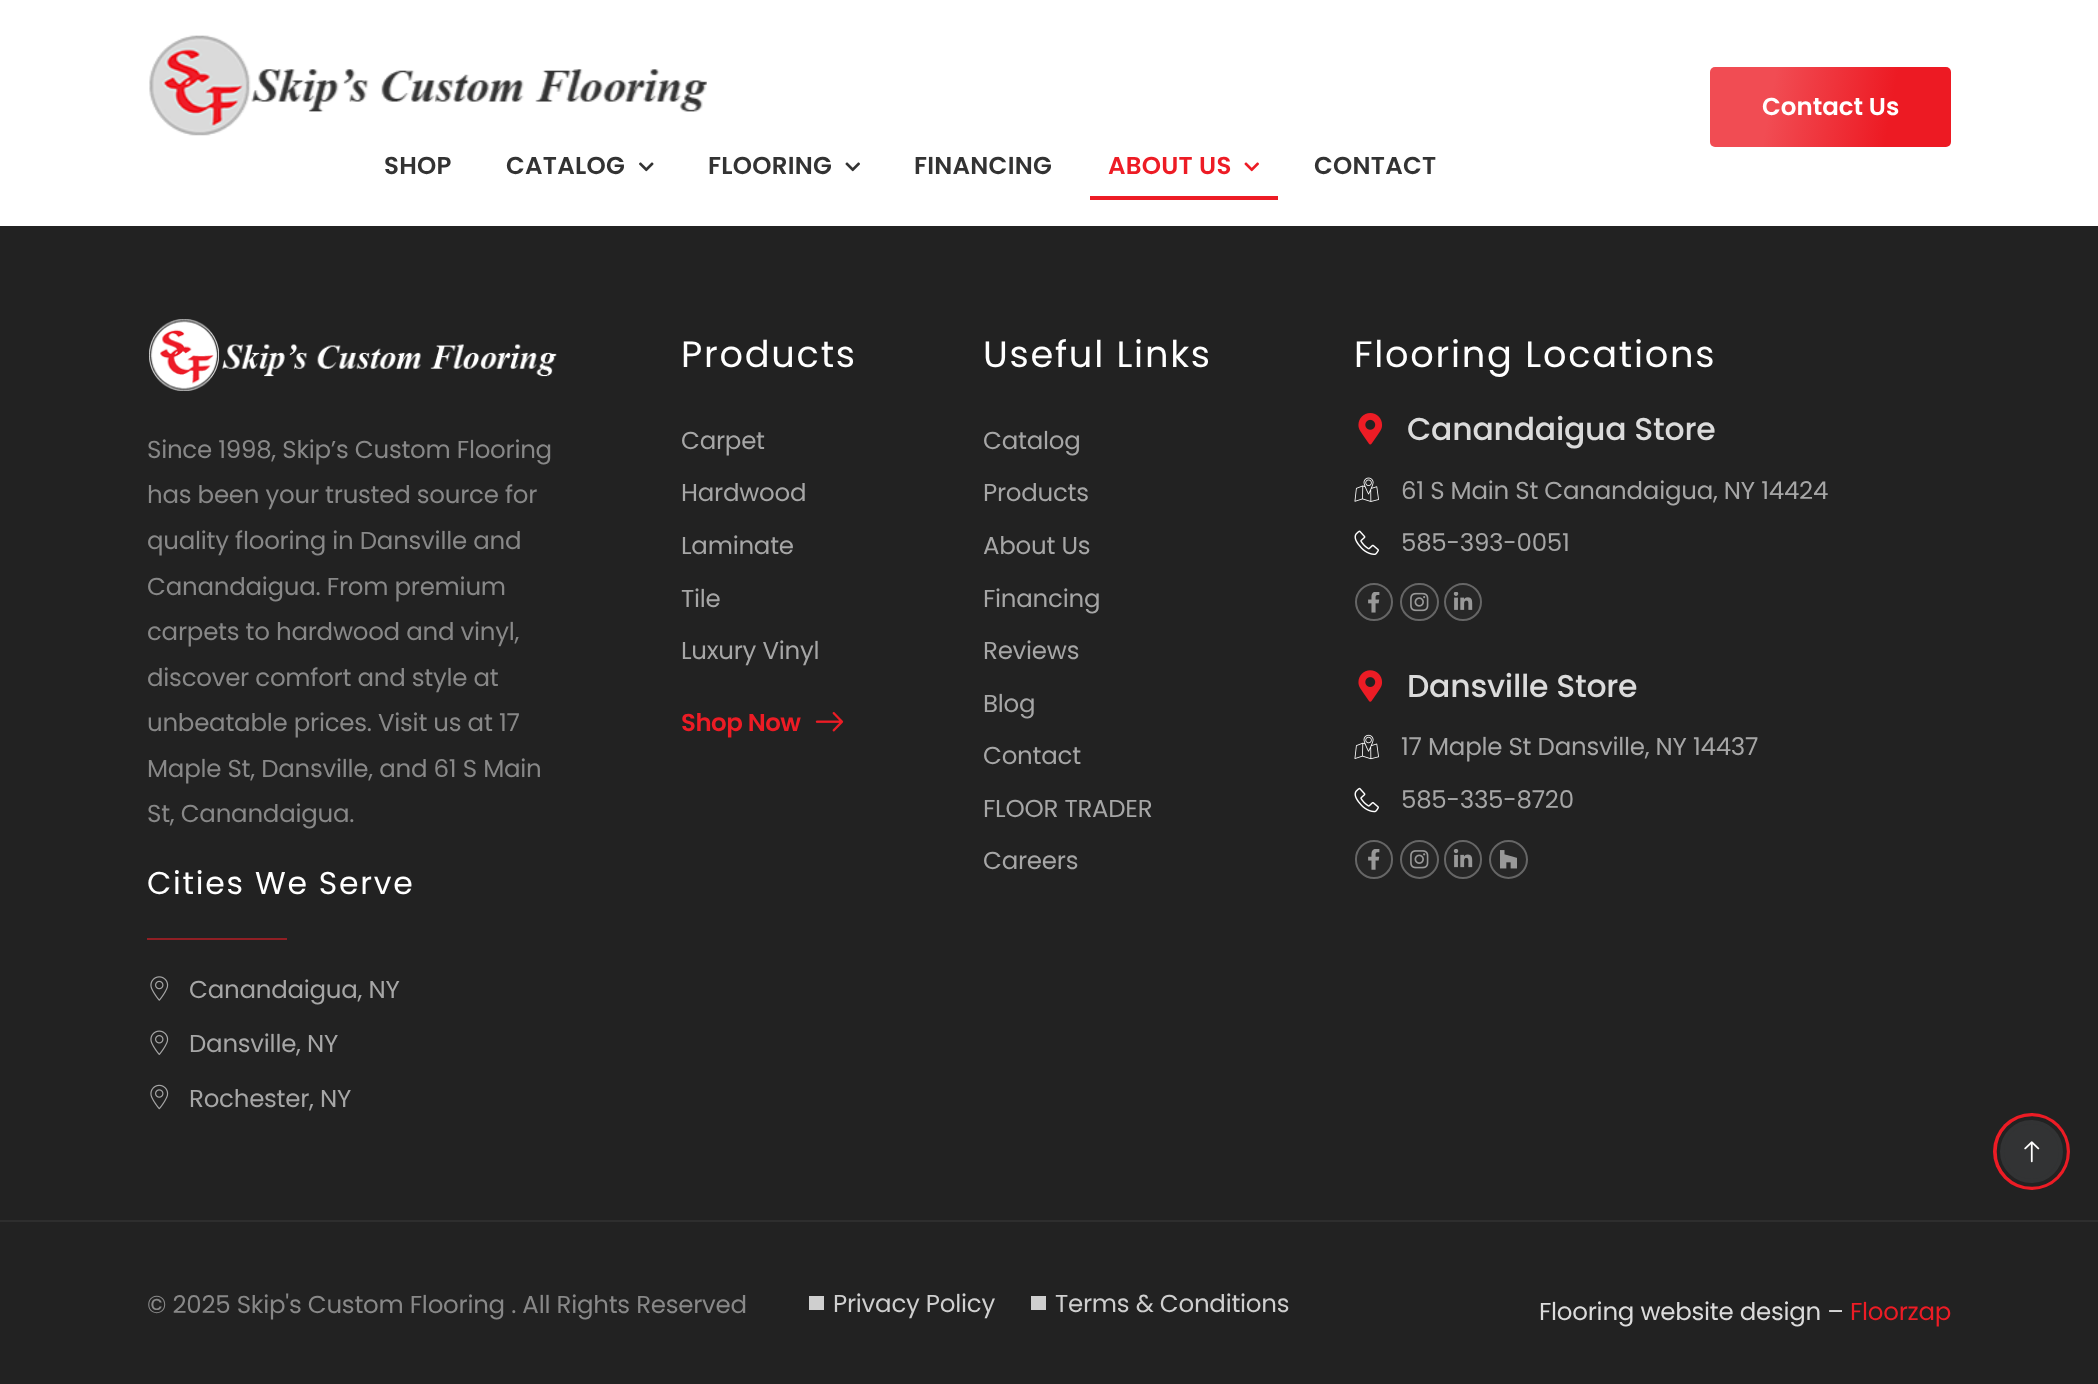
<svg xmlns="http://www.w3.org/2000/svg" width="2098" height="1384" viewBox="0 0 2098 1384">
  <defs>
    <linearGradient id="g1" gradientUnits="userSpaceOnUse" x1="1707" y1="85" x2="1954" y2="129"><stop offset="0.26" stop-color="rgb(241,76,83)"/><stop offset="0.74" stop-color="rgb(237,26,35)"/></linearGradient>
    <clipPath id="clip1"><rect x="1993" y="1113" width="77" height="77" rx="38.5"/></clipPath>
  </defs>
  <rect width="100%" height="100%" fill="rgb(34,34,34)"/>
  <rect x="0" y="0" width="2098" height="226" fill="rgb(255,255,255)"/>
  <rect x="1710" y="67" width="241" height="80" rx="5" fill="url(#g1)"/>
  <text x="1762" y="115" font-family="Poppins" font-size="24.5" font-weight="600" fill="rgb(255,255,255)">Contact Us</text>
  <image x="149" y="35" width="558" height="101" href="pic1.png"/>
  <g font-family="Poppins" font-size="24.5" font-weight="600" letter-spacing="0.25" fill="rgb(51,51,51)">
    <text x="384" y="174">SHOP</text>
    <text x="506" y="174">CATALOG</text>
  </g>
  <image x="639" y="162" width="15" height="10" href="pic2.png"/>
  <text x="708" y="174" font-family="Poppins" font-size="24.5" font-weight="600" letter-spacing="0.25" fill="rgb(51,51,51)">FLOORING</text>
  <image x="845" y="162" width="15" height="10" href="pic3.png"/>
  <text x="914" y="174" font-family="Poppins" font-size="24.5" font-weight="600" letter-spacing="0.25" fill="rgb(51,51,51)">FINANCING</text>
  <text x="1108" y="174" font-family="Poppins" font-size="24.5" font-weight="600" letter-spacing="0.25" fill="rgb(237,28,37)">ABOUT US</text>
  <image x="1244" y="162" width="15" height="10" href="pic4.png"/>
  <rect x="1090" y="196" width="188" height="4" fill="rgb(237,28,37)"/>
  <text x="1314" y="174" font-family="Poppins" font-size="24.5" font-weight="600" letter-spacing="0.25" fill="rgb(51,51,51)">CONTACT</text>
  <image x="149" y="319" width="408" height="72" href="pic5.png"/>
  <g font-family="Poppins" font-size="24.5" letter-spacing="-0.25" fill="rgb(136,136,136)">
    <text>
      <tspan x="147" y="458">Since 1998, Skip’s Custom Flooring</tspan>
      <tspan x="147" y="503">has been your trusted source for</tspan>
      <tspan x="147" y="549">quality flooring in Dansville and</tspan>
      <tspan x="147" y="595">Canandaigua. From premium</tspan>
      <tspan x="147" y="640">carpets to hardwood and vinyl,</tspan>
      <tspan x="147" y="686">discover comfort and style at</tspan>
      <tspan x="147" y="731">unbeatable prices. Visit us at 17</tspan>
      <tspan x="147" y="777">Maple St, Dansville, and 61 S Main</tspan>
      <tspan x="147" y="822">St, Canandaigua.</tspan>
    </text>
  </g>
  <text x="147" y="894" font-family="Poppins" font-size="31.5" letter-spacing="1.75" fill="rgb(255,255,255)">Cities We Serve</text>
  <rect x="147" y="938" width="140" height="2" fill="rgb(144,31,36)"/>
  <image x="150" y="976" width="19" height="25" href="pic6.png"/>
  <text x="189" y="998" font-family="Poppins" font-size="24.5" letter-spacing="-0.25" fill="rgb(166,166,166)">Canandaigua, NY</text>
  <image x="150" y="1030" width="19" height="25" href="pic7.png"/>
  <text x="189" y="1052" font-family="Poppins" font-size="24.5" letter-spacing="-0.25" fill="rgb(166,166,166)">Dansville, NY</text>
  <image x="150" y="1084" width="19" height="26" href="pic8.png"/>
  <text x="189" y="1107" font-family="Poppins" font-size="24.5" letter-spacing="-0.25" fill="rgb(166,166,166)">Rochester, NY</text>
  <text x="681" y="367" font-family="Poppins" font-size="36.75" letter-spacing="1.75" fill="rgb(255,255,255)">Products</text>
  <g font-family="Poppins" font-size="24.5" letter-spacing="-0.25" fill="rgb(166,166,166)">
    <text x="681" y="449">Carpet</text>
    <text x="681" y="501">Hardwood</text>
    <text x="681" y="554">Laminate</text>
    <text x="681" y="607">Tile</text>
    <text x="681" y="659">Luxury Vinyl</text>
  </g>
  <text x="681" y="731" font-family="Poppins" font-size="24.5" font-weight="600" letter-spacing="-0.5" fill="rgb(237,28,37)">Shop Now</text>
  <image x="815" y="712" width="29" height="20" href="pic9.png"/>
  <text x="983" y="367" font-family="Poppins" font-size="36.75" letter-spacing="1.75" fill="rgb(255,255,255)">Useful Links</text>
  <g font-family="Poppins" font-size="24.5" letter-spacing="-0.25" fill="rgb(166,166,166)">
    <text x="983" y="449">Catalog</text>
    <text x="983" y="501">Products</text>
    <text x="983" y="554">About Us</text>
    <text x="983" y="607">Financing</text>
    <text x="983" y="659">Reviews</text>
    <text x="983" y="712">Blog</text>
    <text x="983" y="764">Contact</text>
    <text x="983" y="817">FLOOR TRADER</text>
    <text x="983" y="869">Careers</text>
  </g>
  <text x="1354" y="367" font-family="Poppins" font-size="36.75" letter-spacing="1.75" fill="rgb(255,255,255)">Flooring Locations</text>
  <image x="1358" y="413" width="25" height="32" href="pic10.png"/>
  <text x="1407" y="440" font-family="Poppins" font-size="31.5" font-weight="500" letter-spacing="-0.25" fill="rgb(219,219,219)">Canandaigua Store</text>
  <image x="1354" y="477" width="25" height="25" href="pic11.png"/>
  <text x="1401" y="499" font-family="Poppins" font-size="24.5" letter-spacing="-0.25" fill="rgb(166,166,166)">61 S Main St Canandaigua, NY 14424</text>
  <image x="1354" y="530" width="25" height="25" href="pic12.png"/>
  <text x="1401" y="551" font-family="Poppins" font-size="24.5" letter-spacing="-0.25" fill="rgb(166,166,166)">585-393-0051</text>
  <circle cx="1374" cy="602" r="18" fill="rgb(39,39,39)" stroke="rgb(102,102,102)" stroke-width="2"/>
  <image x="1368" y="592" width="12" height="21" href="pic13.png"/>
  <rect x="1401" y="584" width="37" height="36" rx="18" fill="rgb(39,39,39)" stroke="rgb(102,102,102)" stroke-width="2"/>
  <image x="1410" y="592" width="19" height="20" href="pic14.png"/>
  <circle cx="1463" cy="602" r="18" fill="rgb(39,39,39)" stroke="rgb(102,102,102)" stroke-width="2"/>
  <image x="1453" y="592" width="20" height="18" href="pic15.png"/>
  <image x="1358" y="670" width="25" height="32" href="pic16.png"/>
  <text x="1407" y="697" font-family="Poppins" font-size="31.5" font-weight="500" letter-spacing="-0.25" fill="rgb(219,219,219)">Dansville Store</text>
  <image x="1354" y="734" width="25" height="26" href="pic17.png"/>
  <text x="1401" y="755" font-family="Poppins" font-size="24.5" letter-spacing="-0.25" fill="rgb(166,166,166)">17 Maple St Dansville, NY 14437</text>
  <image x="1354" y="787" width="25" height="26" href="pic18.png"/>
  <text x="1401" y="808" font-family="Poppins" font-size="24.5" letter-spacing="-0.25" fill="rgb(166,166,166)">585-335-8720</text>
  <rect x="1356" y="841" width="36" height="37" rx="18" fill="rgb(39,39,39)" stroke="rgb(102,102,102)" stroke-width="2"/>
  <image x="1368" y="849" width="12" height="21" href="pic19.png"/>
  <circle cx="1419.5" cy="859.5" r="18.5" fill="rgb(39,39,39)" stroke="rgb(102,102,102)" stroke-width="2"/>
  <image x="1410" y="850" width="19" height="19" href="pic20.png"/>
  <rect x="1445" y="841" width="36" height="37" rx="18" fill="rgb(39,39,39)" stroke="rgb(102,102,102)" stroke-width="2"/>
  <image x="1453" y="849" width="20" height="19" href="pic21.png"/>
  <circle cx="1508.5" cy="859.5" r="18.5" fill="rgb(39,39,39)" stroke="rgb(102,102,102)" stroke-width="2"/>
  <image x="1500" y="850" width="17" height="19" href="pic22.png"/>
  <rect x="0" y="1220" width="2098" height="2" fill="rgb(46,46,46)"/>
  <text x="147" y="1313" font-family="Poppins" font-size="24.5" letter-spacing="-0.25" fill="rgb(136,136,136)">© 2025 Skip's Custom Flooring . All Rights Reserved</text>
  <rect x="809" y="1296" width="15" height="14" fill="rgb(207,207,207)"/>
  <text x="833" y="1312" font-family="Poppins" font-size="24.5" letter-spacing="-0.25" fill="rgb(207,207,207)">Privacy Policy</text>
  <rect x="1031" y="1296" width="15" height="14" fill="rgb(207,207,207)"/>
  <text x="1055" y="1312" font-family="Poppins" font-size="24.5" letter-spacing="-0.25" fill="rgb(207,207,207)">Terms &amp; Conditions</text>
  <text x="1539" y="1320" font-family="Poppins" font-size="24.5" letter-spacing="-0.25" fill="rgb(219,219,219)">Flooring website design –</text>
  <text x="1850" y="1320" font-family="Poppins" font-size="24.5" letter-spacing="-0.25" fill="rgb(237,28,37)">Floorzap</text>
  <g clip-path="url(#clip1)">
    <path d="M2032 1114C2052.5 1114 2069 1131 2069 1151.5C2069 1172 2052.5 1189 2032 1189C2011 1189 1994.5 1172 1994.5 1151.5C1994.5 1131 2011 1114 2032 1114" fill="none" stroke="rgb(237,28,37)" stroke-width="4.4" stroke-linecap="round"/>
  </g>
  <circle cx="2031.5" cy="1151.5" r="29.5" fill="rgb(50,51,52)" stroke="rgb(50,51,52)" stroke-width="4"/>
  <image x="2024" y="1141" width="16" height="22" href="pic23.png"/>
</svg>
